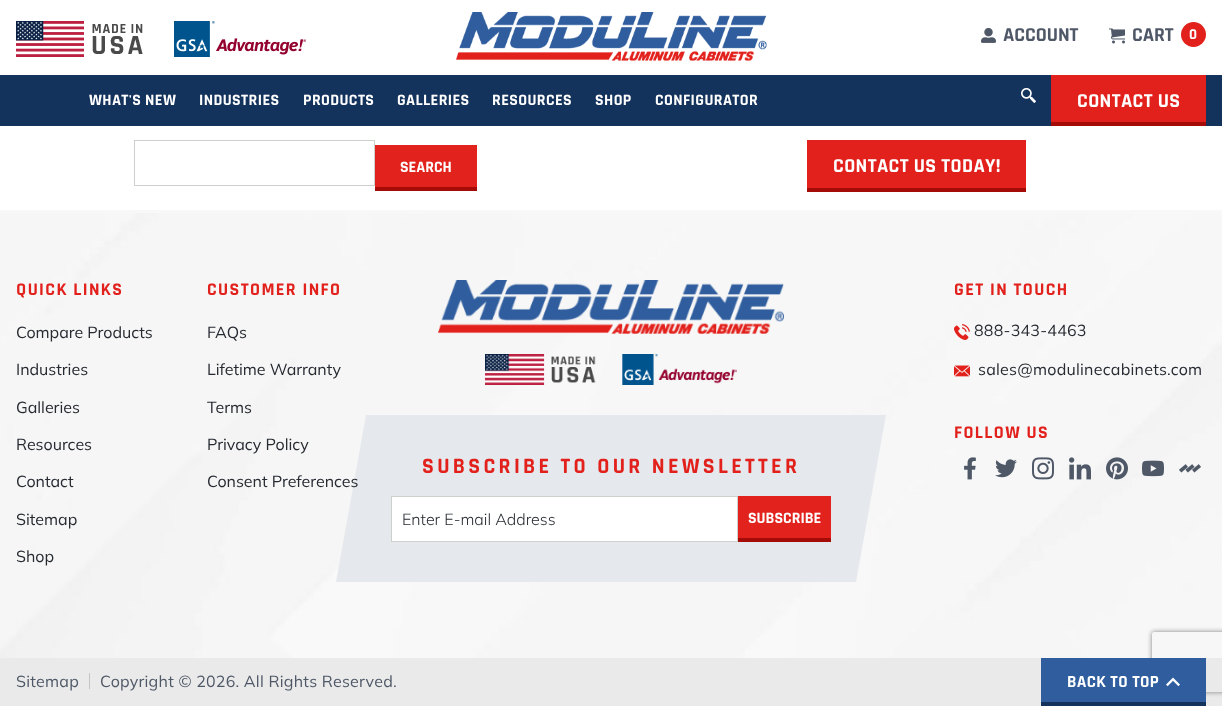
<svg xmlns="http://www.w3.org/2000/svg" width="1222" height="706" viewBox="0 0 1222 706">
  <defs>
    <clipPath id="clip1"><path d="M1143 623H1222V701H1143ZM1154 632H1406C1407 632 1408 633 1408 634V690C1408 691 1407 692 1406 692H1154C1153 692 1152 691 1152 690V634C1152 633 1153 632 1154 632Z" clip-rule="evenodd"/></clipPath>
  </defs>
  <rect width="100%" height="100%" fill="rgb(255,255,255)"/>
  <image x="16" y="21" width="290" height="36" href="pic1.png"/>
  <image x="456" y="12" width="311" height="49" href="pic2.png"/>
  <image x="981" y="27" width="15" height="16" href="pic3.png"/>
  <text x="1003" y="41" font-family="Rajdhani" font-size="20" font-weight="bold" fill="rgb(79,88,103)">ACCOUNT</text>
  <image x="1109" y="28" width="16" height="16" href="pic4.png"/>
  <text x="1132" y="41" font-family="Rajdhani" font-size="20" font-weight="bold" fill="rgb(79,88,103)">CART</text>
  <circle cx="1193.5" cy="34.5" r="12.5" fill="rgb(226,33,28)"/>
  <text x="1189" y="39" font-family="Rajdhani" font-size="15" font-weight="bold" fill="rgb(255,255,255)">0</text>
  <rect x="0" y="75" width="1222" height="51" fill="rgb(19,50,92)"/>
  <g font-family="Rajdhani" font-size="16" font-weight="bold" letter-spacing="0.4" fill="rgb(255,255,255)">
    <text x="89" y="105">WHAT'S NEW</text>
    <text x="199" y="105">INDUSTRIES</text>
    <text x="303" y="105">PRODUCTS</text>
    <text x="397" y="105">GALLERIES</text>
    <text x="492" y="105">RESOURCES</text>
    <text x="595" y="105">SHOP</text>
    <text x="655" y="105">CONFIGURATOR</text>
  </g>
  <image x="1021" y="88" width="15" height="15" href="pic5.png"/>
  <rect x="1051" y="75" width="155" height="47" fill="rgb(226,33,28)"/>
  <text x="1077" y="107" font-family="Rajdhani" font-size="20" font-weight="bold" letter-spacing="0.4" fill="rgb(255,255,255)">CONTACT US</text>
  <rect x="1051" y="122" width="155" height="4" fill="rgb(165,12,8)"/>
  <rect x="134.5" y="140.5" width="240" height="45" fill="none" stroke="rgb(205,209,204)"/>
  <rect x="375" y="145" width="102" height="42" fill="rgb(226,34,28)"/>
  <text x="400" y="172" font-family="Rajdhani" font-size="16" font-weight="bold" fill="rgb(255,255,255)">SEARCH</text>
  <rect x="375" y="187" width="102" height="4" fill="rgb(166,12,7)"/>
  <rect x="807" y="140" width="219" height="48" fill="rgb(226,33,28)"/>
  <text x="833" y="172" font-family="Rajdhani" font-size="20" font-weight="bold" letter-spacing="0.4" fill="rgb(255,255,255)">CONTACT US TODAY!</text>
  <rect x="807" y="188" width="219" height="4" fill="rgb(165,12,8)"/>
  <rect x="0" y="210" width="1222" height="3" fill="rgb(248,248,248)"/>
  <image x="0" y="213" width="1222" height="445" href="pic6.png"/>
  <text x="16" y="295" font-family="Rajdhani" font-size="18" font-weight="bold" letter-spacing="1.4" fill="rgb(226,33,28)">QUICK LINKS</text>
  <g font-family="Mulish" font-size="16" fill="rgb(38,42,49)">
    <text x="16" y="338">Compare Products</text>
    <text x="16" y="375">Industries</text>
    <text x="16" y="413">Galleries</text>
    <text x="16" y="450">Resources</text>
    <text x="16" y="487">Contact</text>
    <text x="16" y="525">Sitemap</text>
    <text x="16" y="562">Shop</text>
  </g>
  <text x="207" y="295" font-family="Rajdhani" font-size="18" font-weight="bold" letter-spacing="1.4" fill="rgb(226,33,28)">CUSTOMER INFO</text>
  <g font-family="Mulish" font-size="16" fill="rgb(38,42,49)">
    <text x="207" y="338">FAQs</text>
    <text x="207" y="375">Lifetime Warranty</text>
    <text x="207" y="413">Terms</text>
    <text x="207" y="450">Privacy Policy</text>
  </g>
  <path d="M366 415H886L856 582H336Z" fill="rgb(229,233,237)"/>
  <text x="207" y="487" font-family="Mulish" font-size="16" fill="rgb(38,42,49)">Consent Preferences</text>
  <text x="954" y="295" font-family="Rajdhani" font-size="18" font-weight="bold" letter-spacing="1.4" fill="rgb(226,33,28)">GET IN TOUCH</text>
  <image x="954" y="324" width="16" height="16" href="pic7.png"/>
  <text x="974" y="336" font-family="Mulish" font-size="16" letter-spacing="0.25" fill="rgb(38,42,49)">888-343-4463</text>
  <image x="954" y="365" width="16" height="12" href="pic8.png"/>
  <text x="978" y="375" font-family="Mulish" font-size="16" letter-spacing="0.25" fill="rgb(38,42,49)">sales@modulinecabinets.com</text>
  <text x="954" y="438" font-family="Rajdhani" font-size="18" font-weight="bold" letter-spacing="1.4" fill="rgb(226,33,28)">FOLLOW US</text>
  <image x="964" y="457" width="12" height="23" href="pic9.png"/>
  <image x="995" y="459" width="22" height="19" href="pic10.png"/>
  <image x="1032" y="457" width="22" height="23" href="pic11.png"/>
  <image x="1069" y="457" width="22" height="23" href="pic12.png"/>
  <image x="1106" y="457" width="22" height="23" href="pic13.png"/>
  <image x="1142" y="460" width="22" height="17" href="pic14.png"/>
  <image x="1179" y="464" width="22" height="9" href="pic15.png"/>
  <image x="438" y="280" width="346" height="54" href="pic16.png"/>
  <image x="485" y="354" width="252" height="31" href="pic17.png"/>
  <text x="422" y="473" font-family="Rajdhani" font-size="22" font-weight="bold" letter-spacing="3.3" fill="rgb(226,33,28)">SUBSCRIBE TO OUR NEWSLETTER</text>
  <rect x="391.5" y="496.5" width="346" height="45" fill="rgb(255,255,255)" stroke="rgb(205,209,204)"/>
  <text x="402" y="525" font-family="Mulish" font-size="16" font-weight="300" fill="rgb(38,42,49)">Enter E-mail Address</text>
  <rect x="738" y="496" width="93" height="42" fill="rgb(226,34,28)"/>
  <text x="748" y="523" font-family="Rajdhani" font-size="16" font-weight="bold" fill="rgb(255,255,255)">SUBSCRIBE</text>
  <rect x="738" y="538" width="93" height="4" fill="rgb(166,12,7)"/>
  <rect x="0" y="658" width="1222" height="48" fill="rgb(234,234,234)"/>
  <text x="16" y="687" font-family="Mulish" font-size="16" letter-spacing="0.25" fill="rgb(79,88,103)">Sitemap</text>
  <rect x="89" y="673" width="1" height="16" fill="rgb(195,197,201)"/>
  <text x="100" y="687" font-family="Mulish" font-size="16" letter-spacing="0.25" fill="rgb(79,88,103)">Copyright © 2026. All Rights Reserved.</text>
  <g clip-path="url(#clip1)">
    <rect x="1152" y="632" width="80" height="60" rx="2" fill="rgb(128,128,128)" filter="blur(2.5px)"/>
  </g>
  <rect x="1041" y="658" width="165" height="44" fill="rgb(47,93,158)"/>
  <text x="1067" y="687" font-family="Rajdhani" font-size="17" font-weight="bold" letter-spacing="0.4" fill="rgb(255,255,255)">BACK TO TOP</text>
  <image x="1166" y="677" width="14" height="10" href="pic18.png"/>
  <rect x="1041" y="702" width="165" height="4" fill="rgb(19,50,92)"/>
</svg>
